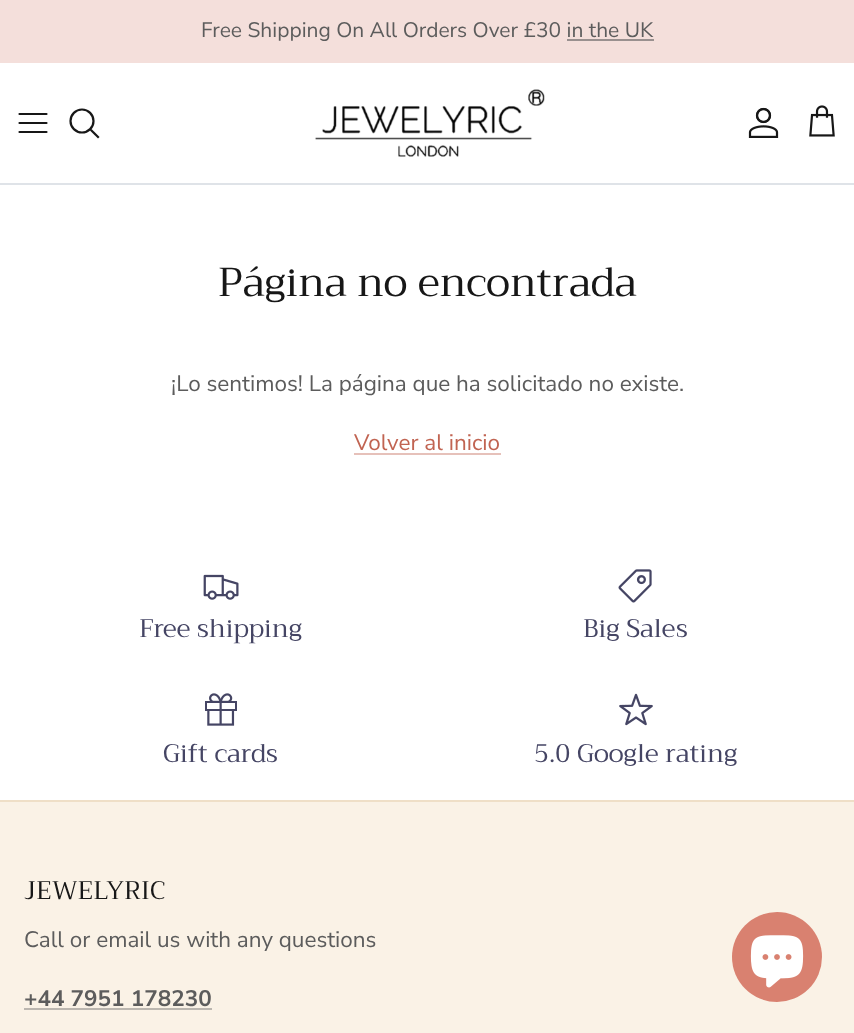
<svg xmlns="http://www.w3.org/2000/svg" width="854" height="1033" viewBox="0 0 854 1033">
  <rect width="100%" height="100%" fill="rgb(255,255,255)"/>
  <rect x="0" y="0" width="854" height="63" fill="rgb(244,223,219)"/>
  <text x="201" y="37" font-family="Nunito Sans" font-size="21" fill="rgb(92,92,92)">Free Shipping On All Orders Over £30 in the UK</text>
  <rect x="567" y="39" width="87" height="2" fill="rgb(153,144,143)"/>
  <rect x="0" y="183" width="854" height="2" fill="rgb(223,227,232)"/>
  <path d="M19.5 123H46.5M19.5 114H46.5M19.5 132H46.5" fill="none" stroke="rgb(23,23,23)" stroke-width="2.2" stroke-linecap="round" stroke-linejoin="round"/>
  <circle cx="82" cy="121" r="11.5" fill="none" stroke="rgb(23,23,23)" stroke-width="2.2"/>
  <path d="M91.5 130.5L98 137" fill="none" stroke="rgb(23,23,23)" stroke-width="2.2" stroke-linecap="square"/>
  <image x="315" y="89" width="230" height="68" href="pic1.png"/>
  <image x="748" y="107" width="31" height="31" href="pic2.png"/>
  <image x="809" y="105" width="26" height="32" href="pic3.png"/>
  <text x="218" y="296" font-family="Trirong" font-size="40.5" fill="rgb(23,23,23)">Página no encontrada</text>
  <text x="171" y="391" font-family="Nunito Sans" font-size="22.5" fill="rgb(92,92,92)">¡Lo sentimos! La página que ha solicitado no existe.</text>
  <text x="354" y="450" font-family="Nunito Sans" font-size="22.5" fill="rgb(193,100,82)">Volver al inicio</text>
  <rect x="354" y="453" width="147" height="2" fill="rgb(230,193,186)"/>
  <image x="203" y="574" width="36" height="26" href="pic4.png"/>
  <text x="139" y="637" font-family="Trirong" font-size="25.5" fill="rgb(69,69,100)">Free shipping</text>
  <image x="618" y="569" width="34" height="34" href="pic5.png"/>
  <text x="583" y="637" font-family="Trirong" font-size="25.5" fill="rgb(69,69,100)">Big Sales</text>
  <image x="205" y="693" width="32" height="33" href="pic6.png"/>
  <text x="163" y="762" font-family="Trirong" font-size="25.5" fill="rgb(69,69,100)">Gift cards</text>
  <image x="619" y="693" width="34" height="33" href="pic7.png"/>
  <text x="534" y="762" font-family="Trirong" font-size="25.5" fill="rgb(69,69,100)">5.0 Google rating</text>
  <rect x="0" y="802" width="854" height="231" fill="rgb(250,242,230)"/>
  <rect x="0" y="800" width="854" height="2" fill="rgb(239,223,199)"/>
  <text x="24" y="899" font-family="Trirong" font-size="25.5" fill="rgb(23,23,23)">JEWELYRIC</text>
  <text x="24" y="947" font-family="Nunito Sans" font-size="22.5" fill="rgb(92,92,92)">Call or email us with any questions</text>
  <text x="24" y="1006" font-family="Nunito Sans" font-size="22.5" font-weight="bold" fill="rgb(92,92,92)">+44 7951 178230</text>
  <rect x="24" y="1008" width="188" height="2" fill="rgb(187,182,175)"/>
  <circle cx="777" cy="957" r="45" fill="rgb(217,129,112)"/>
  <image x="750" y="935" width="54" height="53" href="pic8.png"/>
</svg>
